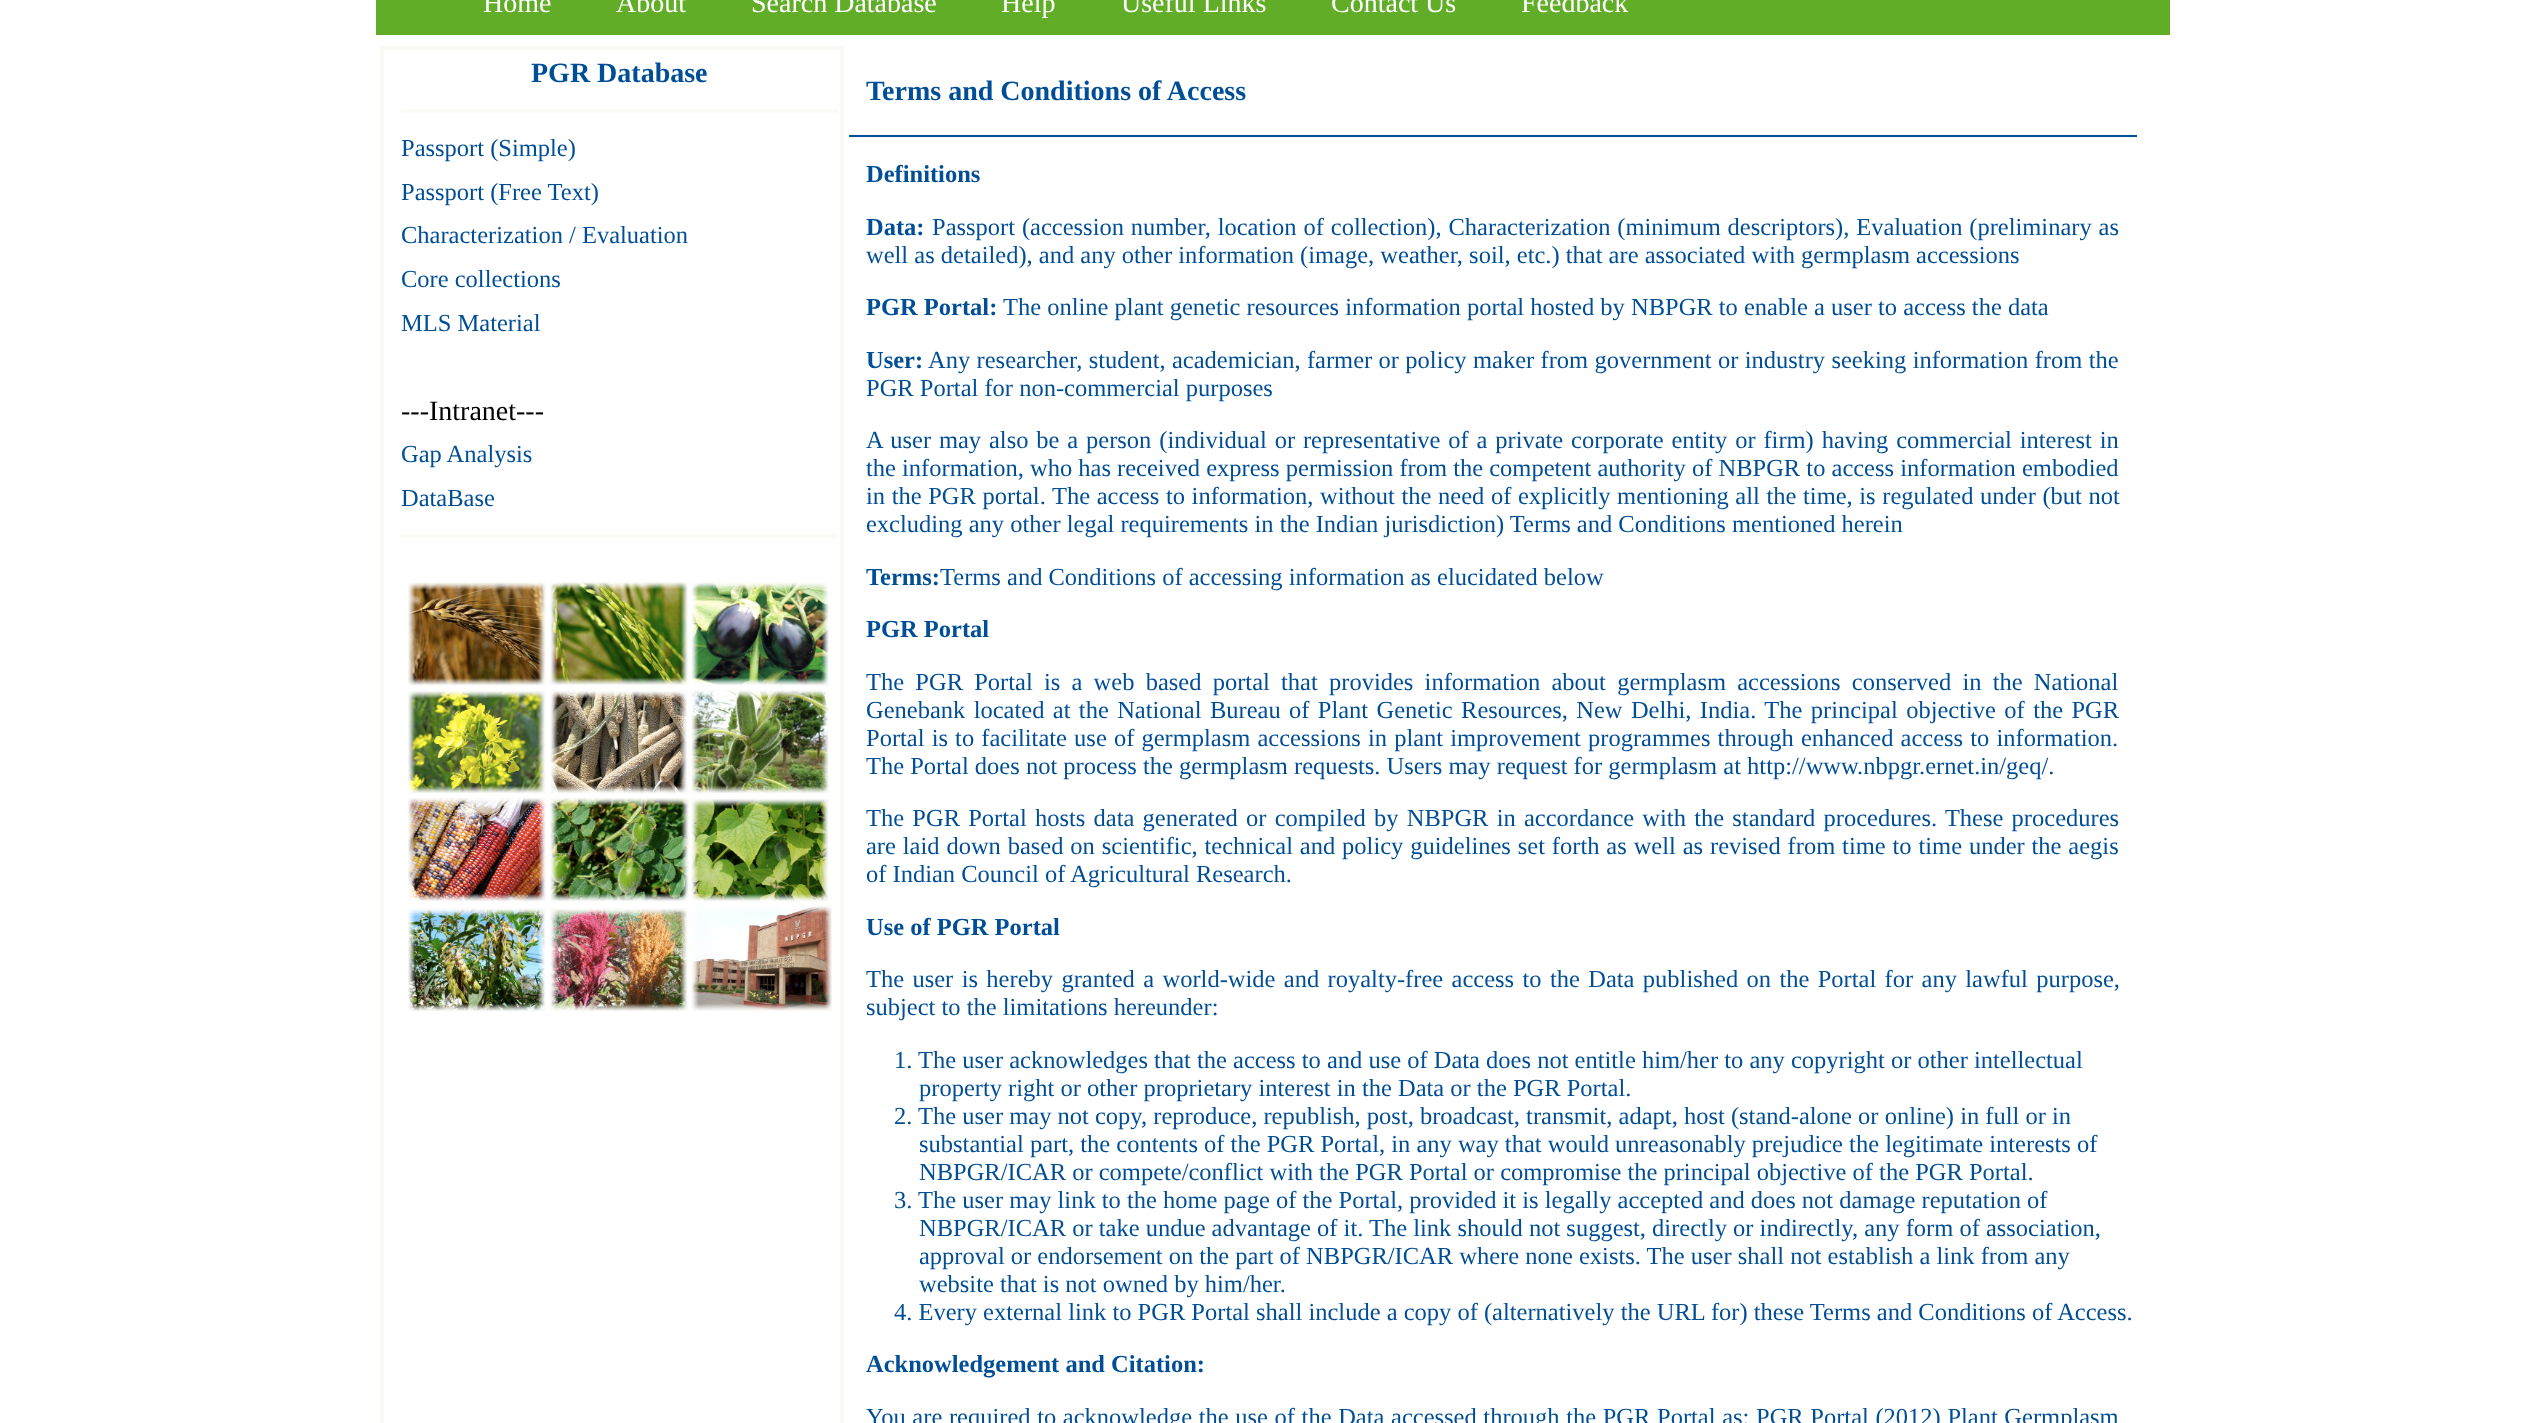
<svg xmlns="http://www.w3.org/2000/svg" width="2546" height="1423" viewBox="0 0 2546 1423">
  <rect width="100%" height="100%" fill="rgb(255,255,255)"/>
  <rect x="376" y="0" width="1794" height="35" fill="rgb(97,173,39)"/>
  <g font-family="Liberation Serif" font-size="28" fill="rgb(255,255,255)">
    <text x="483" y="12">Home</text>
    <text x="616" y="12">About</text>
    <text x="751" y="12">Search Database</text>
    <text x="1001" y="12">Help</text>
    <text x="1121" y="12">Useful Links</text>
    <text x="1331" y="12">Contact Us</text>
    <text x="1521" y="12">Feedback</text>
  </g>
  <rect x="382" y="48" width="460" height="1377" fill="none" stroke="rgb(248,248,245)" stroke-width="4"/>
  <text x="531" y="82" font-family="Liberation Serif" font-size="28" font-weight="bold" fill="rgb(0,78,150)">PGR Database</text>
  <rect x="401" y="109" width="437" height="4" fill="rgb(251,251,248)"/>
  <g font-family="Liberation Serif" font-size="24.5" fill="rgb(0,78,150)">
    <text>
      <tspan x="401" y="156">Passport (Simple)</tspan>
      <tspan x="401" y="200">Passport (Free Text)</tspan>
      <tspan x="401" y="243">Characterization / Evaluation</tspan>
      <tspan x="401" y="287">Core collections</tspan>
      <tspan x="401" y="331">MLS Material</tspan>
    </text>
  </g>
  <text x="401" y="420" font-family="Liberation Serif" font-size="28" fill="rgb(0,0,0)">---Intranet---</text>
  <g font-family="Liberation Serif" font-size="24.5" fill="rgb(0,78,150)">
    <text>
      <tspan x="401" y="462">Gap Analysis</tspan>
      <tspan x="401" y="506">DataBase</tspan>
    </text>
  </g>
  <rect x="401" y="534" width="437" height="4" fill="rgb(251,251,248)"/>
  <image x="408" y="582" width="424" height="429" href="pic1.png"/>
  <text x="866" y="100" font-family="Liberation Serif" font-size="28" font-weight="bold" fill="rgb(0,78,150)">Terms and Conditions of Access</text>
  <rect x="849" y="135" width="1288" height="2" fill="rgb(0,78,150)"/>
  <g font-family="Liberation Serif" font-size="24.5" font-weight="bold" fill="rgb(0,78,150)">
    <text x="866" y="182">Definitions</text>
    <text x="866" y="235">Data:</text>
  </g>
  <g font-family="Liberation Serif" font-size="24.5" fill="rgb(0,78,150)">
    <text x="932" y="235" word-spacing="0.75">Passport (accession number, location of collection), Characterization (minimum descriptors), Evaluation (preliminary as</text>
    <text x="866" y="263">well as detailed), and any other information (image, weather, soil, etc.) that are associated with germplasm accessions</text>
  </g>
  <text x="866" y="315" font-family="Liberation Serif" font-size="24.5" font-weight="bold" fill="rgb(0,78,150)">PGR Portal:</text>
  <text x="1003" y="315" font-family="Liberation Serif" font-size="24.5" fill="rgb(0,78,150)">The online plant genetic resources information portal hosted by NBPGR to enable a user to access the data</text>
  <text x="866" y="368" font-family="Liberation Serif" font-size="24.5" font-weight="bold" fill="rgb(0,78,150)">User:</text>
  <g font-family="Liberation Serif" font-size="24.5" fill="rgb(0,78,150)">
    <text x="928" y="368" word-spacing="0.25">Any researcher, student, academician, farmer or policy maker from government or industry seeking information from the</text>
    <text x="866" y="396">PGR Portal for non-commercial purposes</text>
    <text>
      <tspan x="866" y="448" word-spacing="1.75">A user may also be a person (individual or representative of a private corporate entity or firm) having commercial interest in</tspan>
      <tspan x="866" y="476">the information, who has received express permission from the competent authority of NBPGR to access information embodied</tspan>
      <tspan x="866" y="504" word-spacing="0.5">in the PGR portal.</tspan>
    </text>
    <text x="1052" y="504" word-spacing="0.5">The access to information, without the need of explicitly mentioning all the time, is regulated under (but not</text>
    <text x="866" y="532">excluding any other legal requirements in the Indian jurisdiction) Terms and Conditions mentioned herein</text>
  </g>
  <text x="866" y="585" font-family="Liberation Serif" font-size="24.5" font-weight="bold" fill="rgb(0,78,150)">Terms:</text>
  <text x="940" y="585" font-family="Liberation Serif" font-size="24.5" fill="rgb(0,78,150)">Terms and Conditions of accessing information as elucidated below</text>
  <text x="866" y="637" font-family="Liberation Serif" font-size="24.5" font-weight="bold" fill="rgb(0,78,150)">PGR Portal</text>
  <g font-family="Liberation Serif" font-size="24.5" fill="rgb(0,78,150)">
    <text>
      <tspan x="866" y="690" word-spacing="5.1">The PGR Portal is a web based portal that provides information about germplasm accessions conserved in the National</tspan>
      <tspan x="866" y="718" word-spacing="2.25">Genebank located at the National Bureau of Plant Genetic Resources, New Delhi, India. The principal objective of the PGR</tspan>
      <tspan x="866" y="746" word-spacing="1">Portal is to facilitate use of germplasm accessions in plant improvement programmes through enhanced access to information.</tspan>
      <tspan x="866" y="774">The Portal does not process the germplasm requests. Users may request for germplasm at http://www.nbpgr.ernet.in/geq/.</tspan>
    </text>
    <text>
      <tspan x="866" y="826" word-spacing="2.1">The PGR Portal hosts data generated or compiled by NBPGR in accordance with the standard procedures. These procedures</tspan>
      <tspan x="866" y="854" word-spacing="0.75">are laid down based on scientific, technical and policy guidelines set forth as well as revised from time to time under the aegis</tspan>
      <tspan x="866" y="882">of Indian Council of Agricultural Research.</tspan>
    </text>
  </g>
  <text x="866" y="935" font-family="Liberation Serif" font-size="24.5" font-weight="bold" fill="rgb(0,78,150)">Use of PGR Portal</text>
  <g font-family="Liberation Serif" font-size="24.5" fill="rgb(0,78,150)">
    <text>
      <tspan x="866" y="987" word-spacing="2.25">The user is hereby granted a world-wide and royalty-free access to the Data published on the Portal for any lawful purpose,</tspan>
      <tspan x="866" y="1015">subject to the limitations hereunder:</tspan>
    </text>
    <text x="894" y="1068">1. The user acknowledges that the access to and use of Data does not entitle him/her to any copyright or other intellectual</text>
    <text x="919" y="1096">property right or other proprietary interest in the Data or the PGR Portal.</text>
    <text x="894" y="1124">2. The user may not copy, reproduce, republish, post, broadcast, transmit, adapt, host (stand-alone or online) in full or in</text>
    <text>
      <tspan x="919" y="1152">substantial part, the contents of the PGR Portal, in any way that would unreasonably prejudice the legitimate interests of</tspan>
      <tspan x="919" y="1180">NBPGR/ICAR or compete/conflict with the PGR Portal or compromise the principal objective of the PGR Portal.</tspan>
    </text>
    <text x="894" y="1208">3. The user may link to the home page of the Portal, provided it is legally accepted and does not damage reputation of</text>
    <text>
      <tspan x="919" y="1236">NBPGR/ICAR or take undue advantage of it. The link should not suggest, directly or indirectly, any form of association,</tspan>
      <tspan x="919" y="1264">approval or endorsement on the part of NBPGR/ICAR where none exists. The user shall not establish a link from any</tspan>
      <tspan x="919" y="1292">website that is not owned by him/her.</tspan>
    </text>
    <text x="894" y="1320">4. Every external link to PGR Portal shall include a copy of (alternatively the URL for) these Terms and Conditions of Access.</text>
  </g>
  <text x="866" y="1372" font-family="Liberation Serif" font-size="24.5" font-weight="bold" fill="rgb(0,78,150)">Acknowledgement and Citation:</text>
  <g font-family="Liberation Serif" font-size="24.5" fill="rgb(0,78,150)">
    <text x="866" y="1425" word-spacing="0.5">You are required to acknowledge the use of the Data accessed through the PGR Portal as:</text>
    <text x="1756" y="1425" word-spacing="0.5">PGR Portal (2012) Plant Germplasm</text>
  </g>
</svg>
